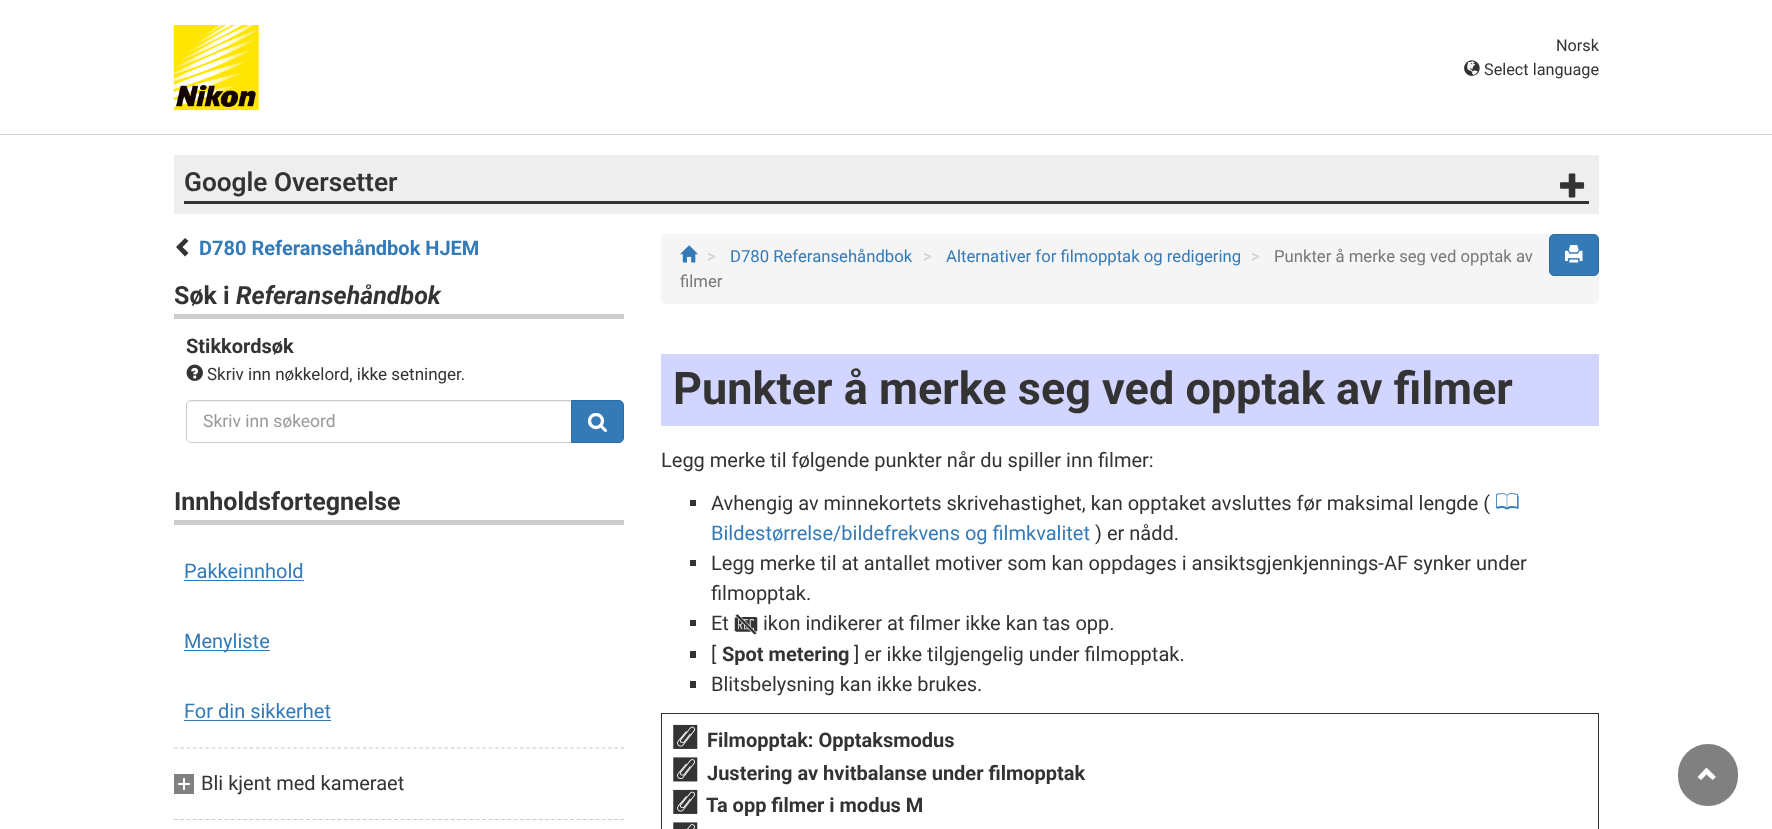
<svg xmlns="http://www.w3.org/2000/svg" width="1772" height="829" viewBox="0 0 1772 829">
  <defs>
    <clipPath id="clip1"><rect x="588" y="413" width="20" height="20"/></clipPath>
  </defs>
  <rect width="100%" height="100%" fill="rgb(255,255,255)"/>
  <rect x="0" y="134" width="1772" height="1" fill="rgb(212,212,212)"/>
  <image x="173" y="25" width="86" height="85" href="pic1.png"/>
  <text x="1556" y="51" font-family="Roboto" font-size="16.25" fill="rgb(51,51,51)">Norsk</text>
  <image x="1464" y="60" width="16" height="16" href="pic2.png"/>
  <text x="1484" y="75" font-family="Roboto" font-size="16.25" fill="rgb(51,51,51)">Select language</text>
  <rect x="174" y="155" width="1425" height="59" fill="rgb(238,238,238)"/>
  <rect x="184" y="201" width="1405" height="3" fill="rgb(51,51,51)"/>
  <text x="184" y="191" font-family="Roboto" font-size="26.25" font-weight="600" fill="rgb(51,51,51)">Google Oversetter</text>
  <image x="1560" y="173" width="25" height="25" href="pic3.png"/>
  <path d="M188.5 241L182.5 247L188.5 253L185 256.5L176 247L185 238Z" fill="rgb(51,51,51)"/>
  <text x="199" y="255" font-family="Roboto" font-size="20" font-weight="bold" fill="rgb(51,122,183)">D780 Referansehåndbok HJEM</text>
  <rect x="174" y="314" width="450" height="5" fill="rgb(204,204,204)"/>
  <text x="174" y="304" font-family="Roboto" font-size="25" font-weight="bold" fill="rgb(51,51,51)">Søk i</text>
  <text x="236" y="304" font-family="Roboto" font-size="25" font-weight="bold" font-style="italic" fill="rgb(51,51,51)">Referansehåndbok</text>
  <text x="186" y="353" font-family="Roboto" font-size="20" font-weight="bold" fill="rgb(51,51,51)">Stikkordsøk</text>
  <image x="186" y="364" width="17" height="17" href="pic4.png"/>
  <text x="207" y="380" font-family="Roboto" font-size="17" fill="rgb(51,51,51)">Skriv inn nøkkelord, ikke setninger.</text>
  <path d="M191 402H571V401H192C189 401 188 403 188 406C188 404 189 402 191 402Z" fill="rgb(236,236,236)"/>
  <path d="M191 400.5H572.5V442.5H191C188.5 442.5 186.5 440.5 186.5 438V405C186.5 402.5 188.5 400.5 191 400.5Z" fill="none" stroke="rgb(204,204,204)"/>
  <text x="203" y="427" font-family="Roboto" font-size="17.5" fill="rgb(153,153,153)">Skriv inn søkeord</text>
  <path d="M571.5 400.5H619C621.5 400.5 623.5 402.5 623.5 405V438C623.5 440.5 621.5 442.5 619 442.5H571.5Z" fill="rgb(51,122,183)" stroke="rgb(46,109,164)"/>
  <g clip-path="url(#clip1)">
    <circle cx="596" cy="421" r="6.5" fill="none" stroke="rgb(255,255,255)" stroke-width="3.3"/>
  </g>
  <path d="M600.5 425.5L605.5 430.5" fill="none" stroke="rgb(255,255,255)" stroke-width="3.1" stroke-linecap="round"/>
  <rect x="174" y="520" width="450" height="5" fill="rgb(204,204,204)"/>
  <text x="174" y="510" font-family="Roboto" font-size="25" font-weight="bold" fill="rgb(51,51,51)">Innholdsfortegnelse</text>
  <text x="184" y="578" font-family="Roboto" font-size="20" fill="rgb(51,122,183)">Pakkeinnhold</text>
  <rect x="184" y="580" width="120" height="1" fill="rgb(51,122,183)"/>
  <rect x="184" y="650" width="86" height="1" fill="rgb(51,122,183)"/>
  <g font-family="Roboto" font-size="20" fill="rgb(51,122,183)">
    <text x="184" y="648">Menyliste</text>
    <text x="184" y="718">For din sikkerhet</text>
  </g>
  <rect x="184" y="720" width="147" height="1" fill="rgb(51,122,183)"/>
  <rect x="174" y="774" width="20" height="20" fill="rgb(128,128,128)"/>
  <rect x="178" y="783" width="12" height="2" fill="rgb(255,255,255)"/>
  <rect x="183" y="778" width="2" height="12" fill="rgb(255,255,255)"/>
  <path d="M174 748H624" fill="none" stroke="rgb(204,204,204)" stroke-width="1.2" stroke-dasharray="3.75 2.54"/>
  <text x="201" y="790" font-family="Roboto" font-size="20" fill="rgb(51,51,51)">Bli kjent med kameraet</text>
  <path d="M174 819.5H624" fill="none" stroke="rgb(204,204,204)" stroke-width="1.2" stroke-dasharray="3.75 2.54"/>
  <rect x="661" y="234" width="938" height="70" rx="5" fill="rgb(245,245,245)"/>
  <image x="680" y="245" width="18" height="18" href="pic5.png"/>
  <text x="707" y="262" font-family="Roboto" font-size="16.7" fill="rgb(204,204,204)">&gt;</text>
  <text x="730" y="262" font-family="Roboto" font-size="16.7" fill="rgb(51,122,183)">D780 Referansehåndbok</text>
  <text x="923" y="262" font-family="Roboto" font-size="16.7" fill="rgb(204,204,204)">&gt;</text>
  <text x="946" y="262" font-family="Roboto" font-size="16.7" fill="rgb(51,122,183)">Alternativer for filmopptak og redigering</text>
  <text x="1251" y="262" font-family="Roboto" font-size="16.7" fill="rgb(204,204,204)">&gt;</text>
  <g font-family="Roboto" font-size="16.7" fill="rgb(119,119,119)">
    <text x="1274" y="262">Punkter å merke seg ved opptak av</text>
    <text x="680" y="287">filmer</text>
  </g>
  <rect x="1549.5" y="234.5" width="49" height="41" rx="4.5" fill="rgb(51,122,183)" stroke="rgb(46,109,164)"/>
  <image x="1565" y="245" width="18" height="18" href="pic6.png"/>
  <rect x="661" y="354" width="938" height="72" fill="rgb(209,213,255)"/>
  <text x="673" y="404" font-family="Roboto" font-size="45" font-weight="bold" fill="rgb(51,51,51)">Punkter å merke seg ved opptak av filmer</text>
  <text x="661" y="467" font-family="Roboto" font-size="20" fill="rgb(51,51,51)">Legg merke til følgende punkter når du spiller inn filmer:</text>
  <rect x="690" y="500" width="6" height="6" fill="rgb(51,51,51)"/>
  <text x="711" y="510" font-family="Roboto" font-size="20" fill="rgb(51,51,51)">Avhengig av minnekortets skrivehastighet, kan opptaket avsluttes før maksimal lengde (</text>
  <text x="1495" y="510" font-family="'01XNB'" font-size="26" font-weight="500" fill="rgb(51,122,183)">0</text>
  <text x="711" y="540" font-family="Roboto" font-size="20" fill="rgb(51,122,183)">Bildestørrelse/bildefrekvens og filmkvalitet</text>
  <text x="1095" y="540" font-family="Roboto" font-size="20" fill="rgb(51,51,51)">) er nådd.</text>
  <rect x="690" y="560" width="6" height="6" fill="rgb(51,51,51)"/>
  <g font-family="Roboto" font-size="20" fill="rgb(51,51,51)">
    <text>
      <tspan x="711" y="570">Legg merke til at antallet motiver som kan oppdages i ansiktsgjenkjennings-AF synker under</tspan>
      <tspan x="711" y="600">filmopptak.</tspan>
    </text>
  </g>
  <rect x="690" y="620" width="6" height="6" fill="rgb(51,51,51)"/>
  <text x="711" y="630" font-family="Roboto" font-size="20" fill="rgb(51,51,51)">Et</text>
  <text x="734" y="630" font-family="'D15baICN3'" font-size="20" fill="rgb(51,51,51)">0</text>
  <text x="763" y="630" font-family="Roboto" font-size="20" fill="rgb(51,51,51)">ikon indikerer at filmer ikke kan tas opp.</text>
  <rect x="690" y="651" width="6" height="7" fill="rgb(51,51,51)"/>
  <text x="711" y="661" font-family="Roboto" font-size="20" fill="rgb(51,51,51)">[</text>
  <text x="722" y="661" font-family="Roboto" font-size="20" font-weight="bold" fill="rgb(51,51,51)">Spot metering</text>
  <text x="854" y="661" font-family="Roboto" font-size="20" fill="rgb(51,51,51)">] er ikke tilgjengelig under filmopptak.</text>
  <rect x="690" y="681" width="6" height="7" fill="rgb(51,51,51)"/>
  <text x="711" y="691" font-family="Roboto" font-size="20" fill="rgb(51,51,51)">Blitsbelysning kan ikke brukes.</text>
  <rect x="661.5" y="713.5" width="937" height="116" fill="none" stroke="rgb(51,51,51)"/>
  <image x="673" y="724" width="25" height="25" href="pic7.png"/>
  <text x="707" y="747" font-family="Roboto" font-size="20" font-weight="bold" fill="rgb(51,51,51)">Filmopptak: Opptaksmodus</text>
  <image x="673" y="757" width="25" height="25" href="pic8.png"/>
  <text x="707" y="780" font-family="Roboto" font-size="20" font-weight="bold" fill="rgb(51,51,51)">Justering av hvitbalanse under filmopptak</text>
  <image x="673" y="789" width="25" height="25" href="pic7.png"/>
  <text x="706" y="812" font-family="Roboto" font-size="20" font-weight="bold" fill="rgb(51,51,51)">Ta opp filmer i modus M</text>
  <image x="673" y="822" width="25" height="7" href="pic9.png"/>
  <rect x="1679.5" y="745.5" width="57" height="59" rx="28.5" fill="rgb(128,128,128)" stroke="rgb(128,128,128)" stroke-width="3"/>
  <path d="M1716 777L1712.5 780L1706.5 774.5L1701 780L1697.5 777L1706.5 767.5Z" fill="rgb(255,255,255)"/>
</svg>
